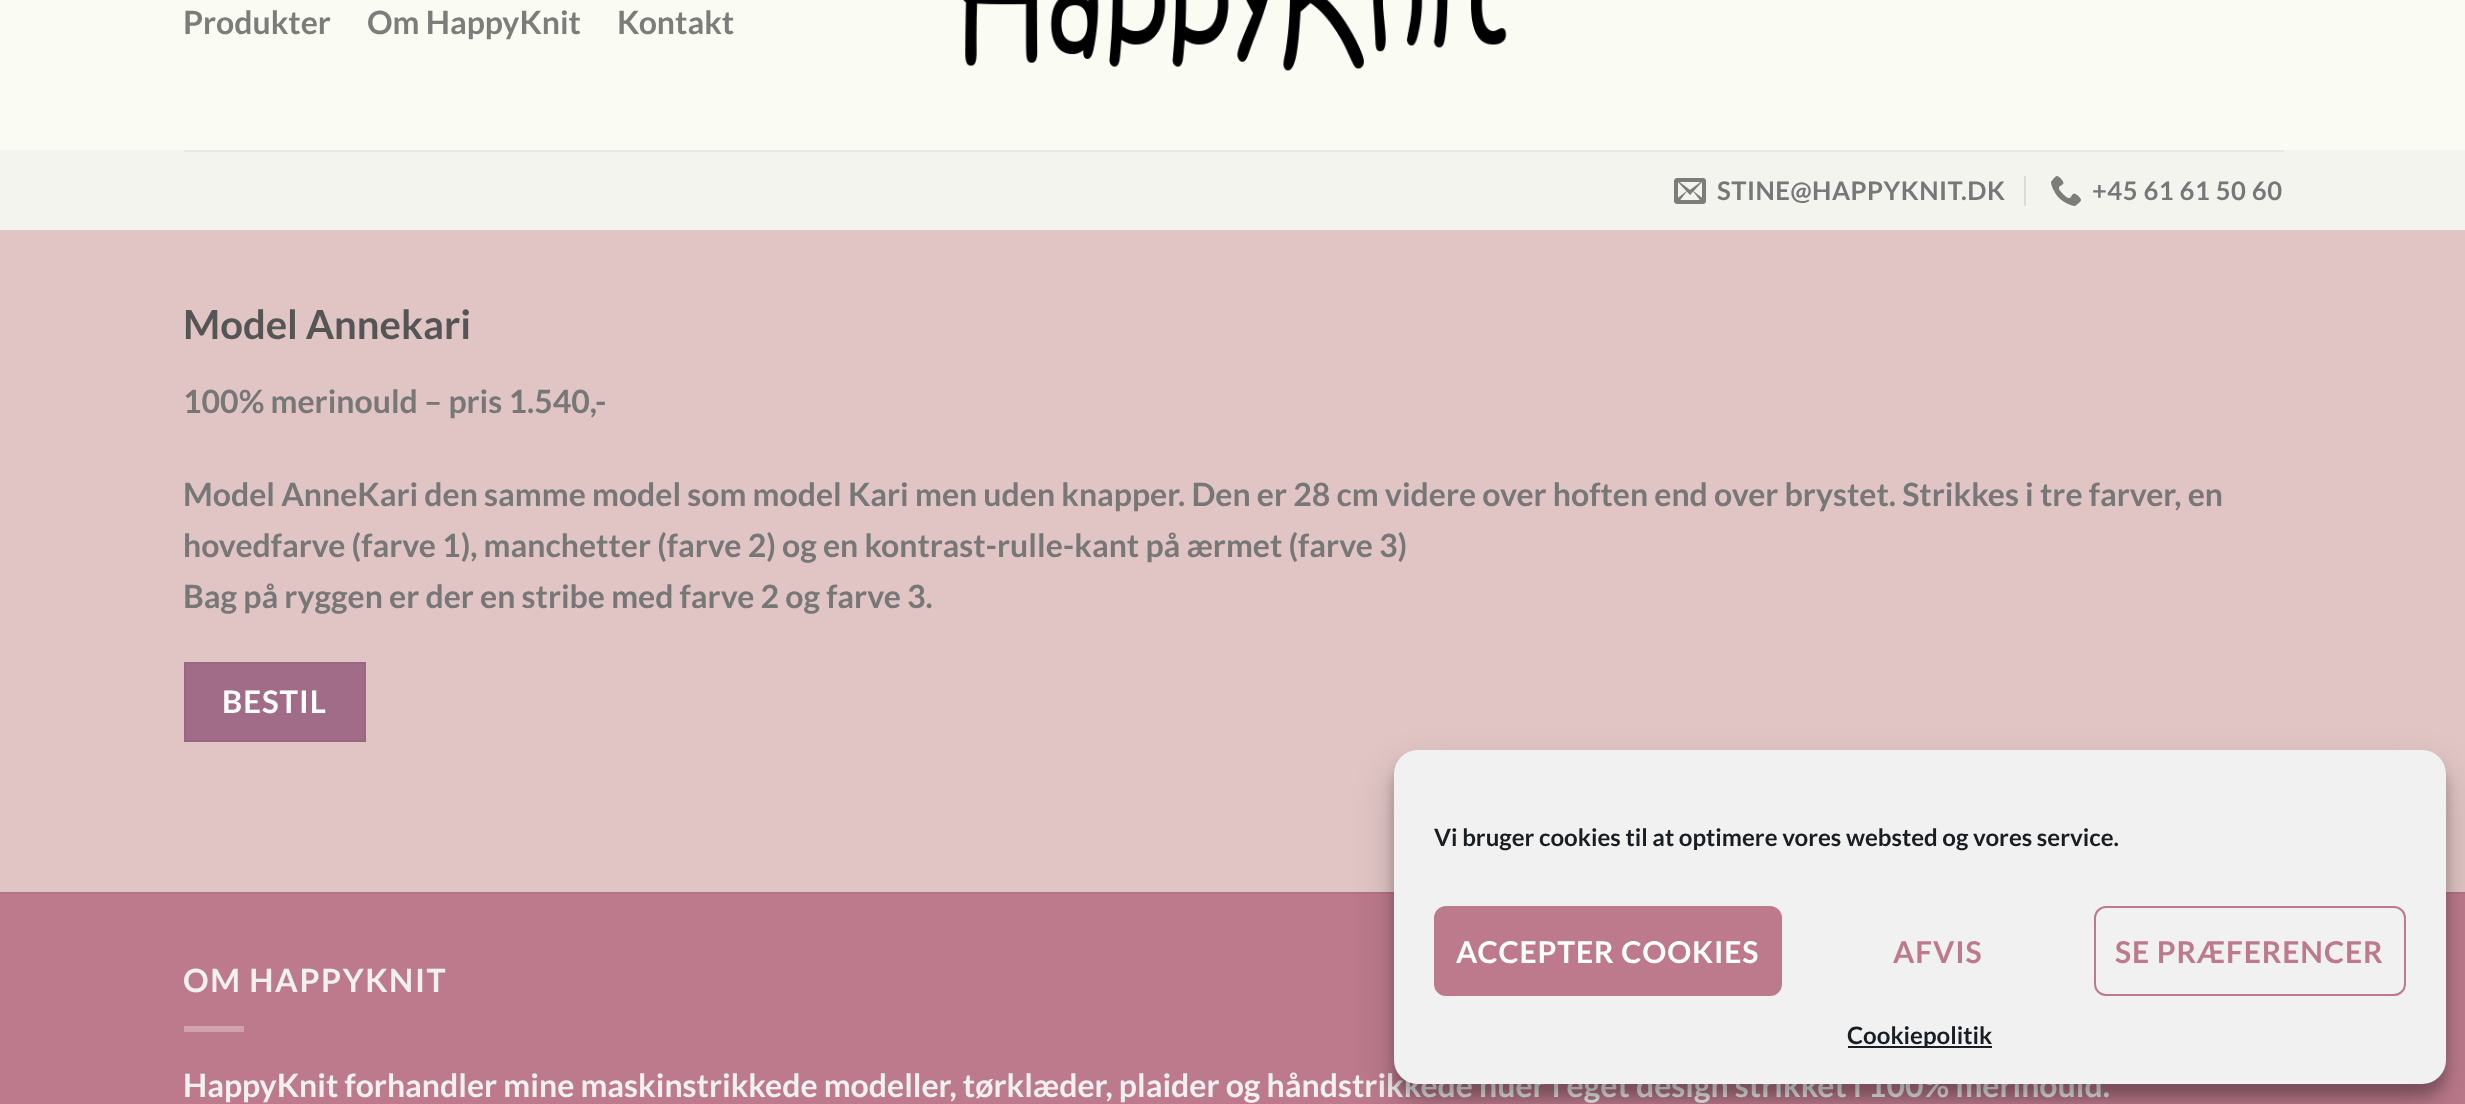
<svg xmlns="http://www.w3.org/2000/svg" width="2465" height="1104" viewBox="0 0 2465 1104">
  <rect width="100%" height="100%" fill="rgb(225,197,197)"/>
  <rect x="0" y="0" width="2465" height="150" fill="rgb(250,252,244)"/>
  <g font-family="Lato" font-size="32" font-weight="bold" fill="rgb(124,125,123)">
    <text x="183" y="34">Produkter</text>
    <text x="367" y="34">Om HappyKnit</text>
    <text x="617" y="34">Kontakt</text>
  </g>
  <image x="963" y="0" width="544" height="71" href="pic1.png"/>
  <rect x="0" y="150" width="2465" height="80" fill="rgb(244,244,239)"/>
  <rect x="184" y="150" width="2100" height="2" fill="rgb(231,231,227)"/>
  <image x="1674" y="178" width="32" height="26" href="pic2.png"/>
  <text x="1717" y="200" font-family="Lato" font-size="25.6" font-weight="bold" letter-spacing="0.5" fill="rgb(119,119,119)">STINE@HAPPYKNIT.DK</text>
  <rect x="2024" y="176" width="2" height="30" fill="rgb(220,220,215)"/>
  <image x="2051" y="176" width="30" height="30" href="pic3.png"/>
  <text x="2092" y="200" font-family="Lato" font-size="25.6" font-weight="bold" letter-spacing="0.5" fill="rgb(119,119,119)">+45 61 61 50 60</text>
  <text x="183" y="339" font-family="Lato" font-size="40" font-weight="bold" fill="rgb(85,85,85)">Model Annekari</text>
  <g font-family="Lato" font-size="32" font-weight="bold" fill="rgb(119,119,119)">
    <text x="183" y="413">100% merinould – pris 1.540,-</text>
    <text>
      <tspan x="183" y="506">Model AnneKari den samme model som model Kari men uden knapper. Den er 28 cm videre over hoften end over brystet. Strikkes i tre farver, en</tspan>
      <tspan x="183" y="557">hovedfarve (farve 1), manchetter (farve 2) og en kontrast-rulle-kant på ærmet (farve 3)</tspan>
      <tspan x="183" y="608">Bag på ryggen er der en stribe med farve 2 og farve 3.</tspan>
    </text>
  </g>
  <rect x="185" y="663" width="180" height="78" fill="rgb(161,108,136)" stroke="rgb(153,103,129)" stroke-width="2"/>
  <text x="222" y="713" font-family="Lato" font-size="31" font-weight="bold" letter-spacing="1" fill="rgb(255,255,255)">BESTIL</text>
  <rect x="0" y="894" width="2465" height="210" fill="rgb(188,122,140)"/>
  <rect x="0" y="892" width="2465" height="2" fill="rgb(179,116,133)"/>
  <text x="183" y="992" font-family="Lato" font-size="32" font-weight="bold" letter-spacing="1.6" fill="rgb(241,241,241)">OM HAPPYKNIT</text>
  <rect x="184" y="1026" width="60" height="6" fill="rgb(208,162,175)"/>
  <text x="183" y="1097" font-family="Lato" font-size="32" font-weight="bold" fill="rgb(241,241,241)">HappyKnit forhandler mine maskinstrikkede modeller, tørklæder, plaider og håndstrikkede huer i eget design strikket i 100% merinould.</text>
  <rect x="1394" y="762" width="1052" height="334" rx="24" fill="rgba(0,0,0,0.23)" filter="blur(6px)"/>
  <rect x="1394" y="770" width="1052" height="334" rx="24" fill="rgba(0,0,0,0.19)" filter="blur(20px)"/>
  <rect x="1394" y="750" width="1052" height="334" rx="24" fill="rgb(241,241,241)"/>
  <text x="1434" y="846" font-family="Lato" font-size="24" font-weight="bold" fill="rgb(25,30,35)">Vi bruger cookies til at optimere vores websted og vores service.</text>
  <rect x="1435" y="907" width="346" height="88" rx="11" fill="rgb(188,122,140)" stroke="rgb(188,122,140)" stroke-width="2"/>
  <text x="1456" y="963" font-family="Lato" font-size="30" font-weight="bold" letter-spacing="0.9" fill="rgb(255,255,255)">ACCEPTER COOKIES</text>
  <text x="1893" y="963" font-family="Lato" font-size="30" font-weight="bold" letter-spacing="0.9" fill="rgb(188,122,140)">AFVIS</text>
  <rect x="2095" y="907" width="310" height="88" rx="11" fill="none" stroke="rgb(188,122,140)" stroke-width="2"/>
  <text x="2115" y="963" font-family="Lato" font-size="30" font-weight="bold" letter-spacing="0.9" fill="rgb(188,122,140)">SE PRÆFERENCER</text>
  <rect x="1848" y="1046" width="144" height="2" fill="rgb(25,30,35)"/>
  <text x="1847" y="1044" font-family="Lato" font-size="24" font-weight="bold" fill="rgb(25,30,35)">Cookiepolitik</text>
</svg>
